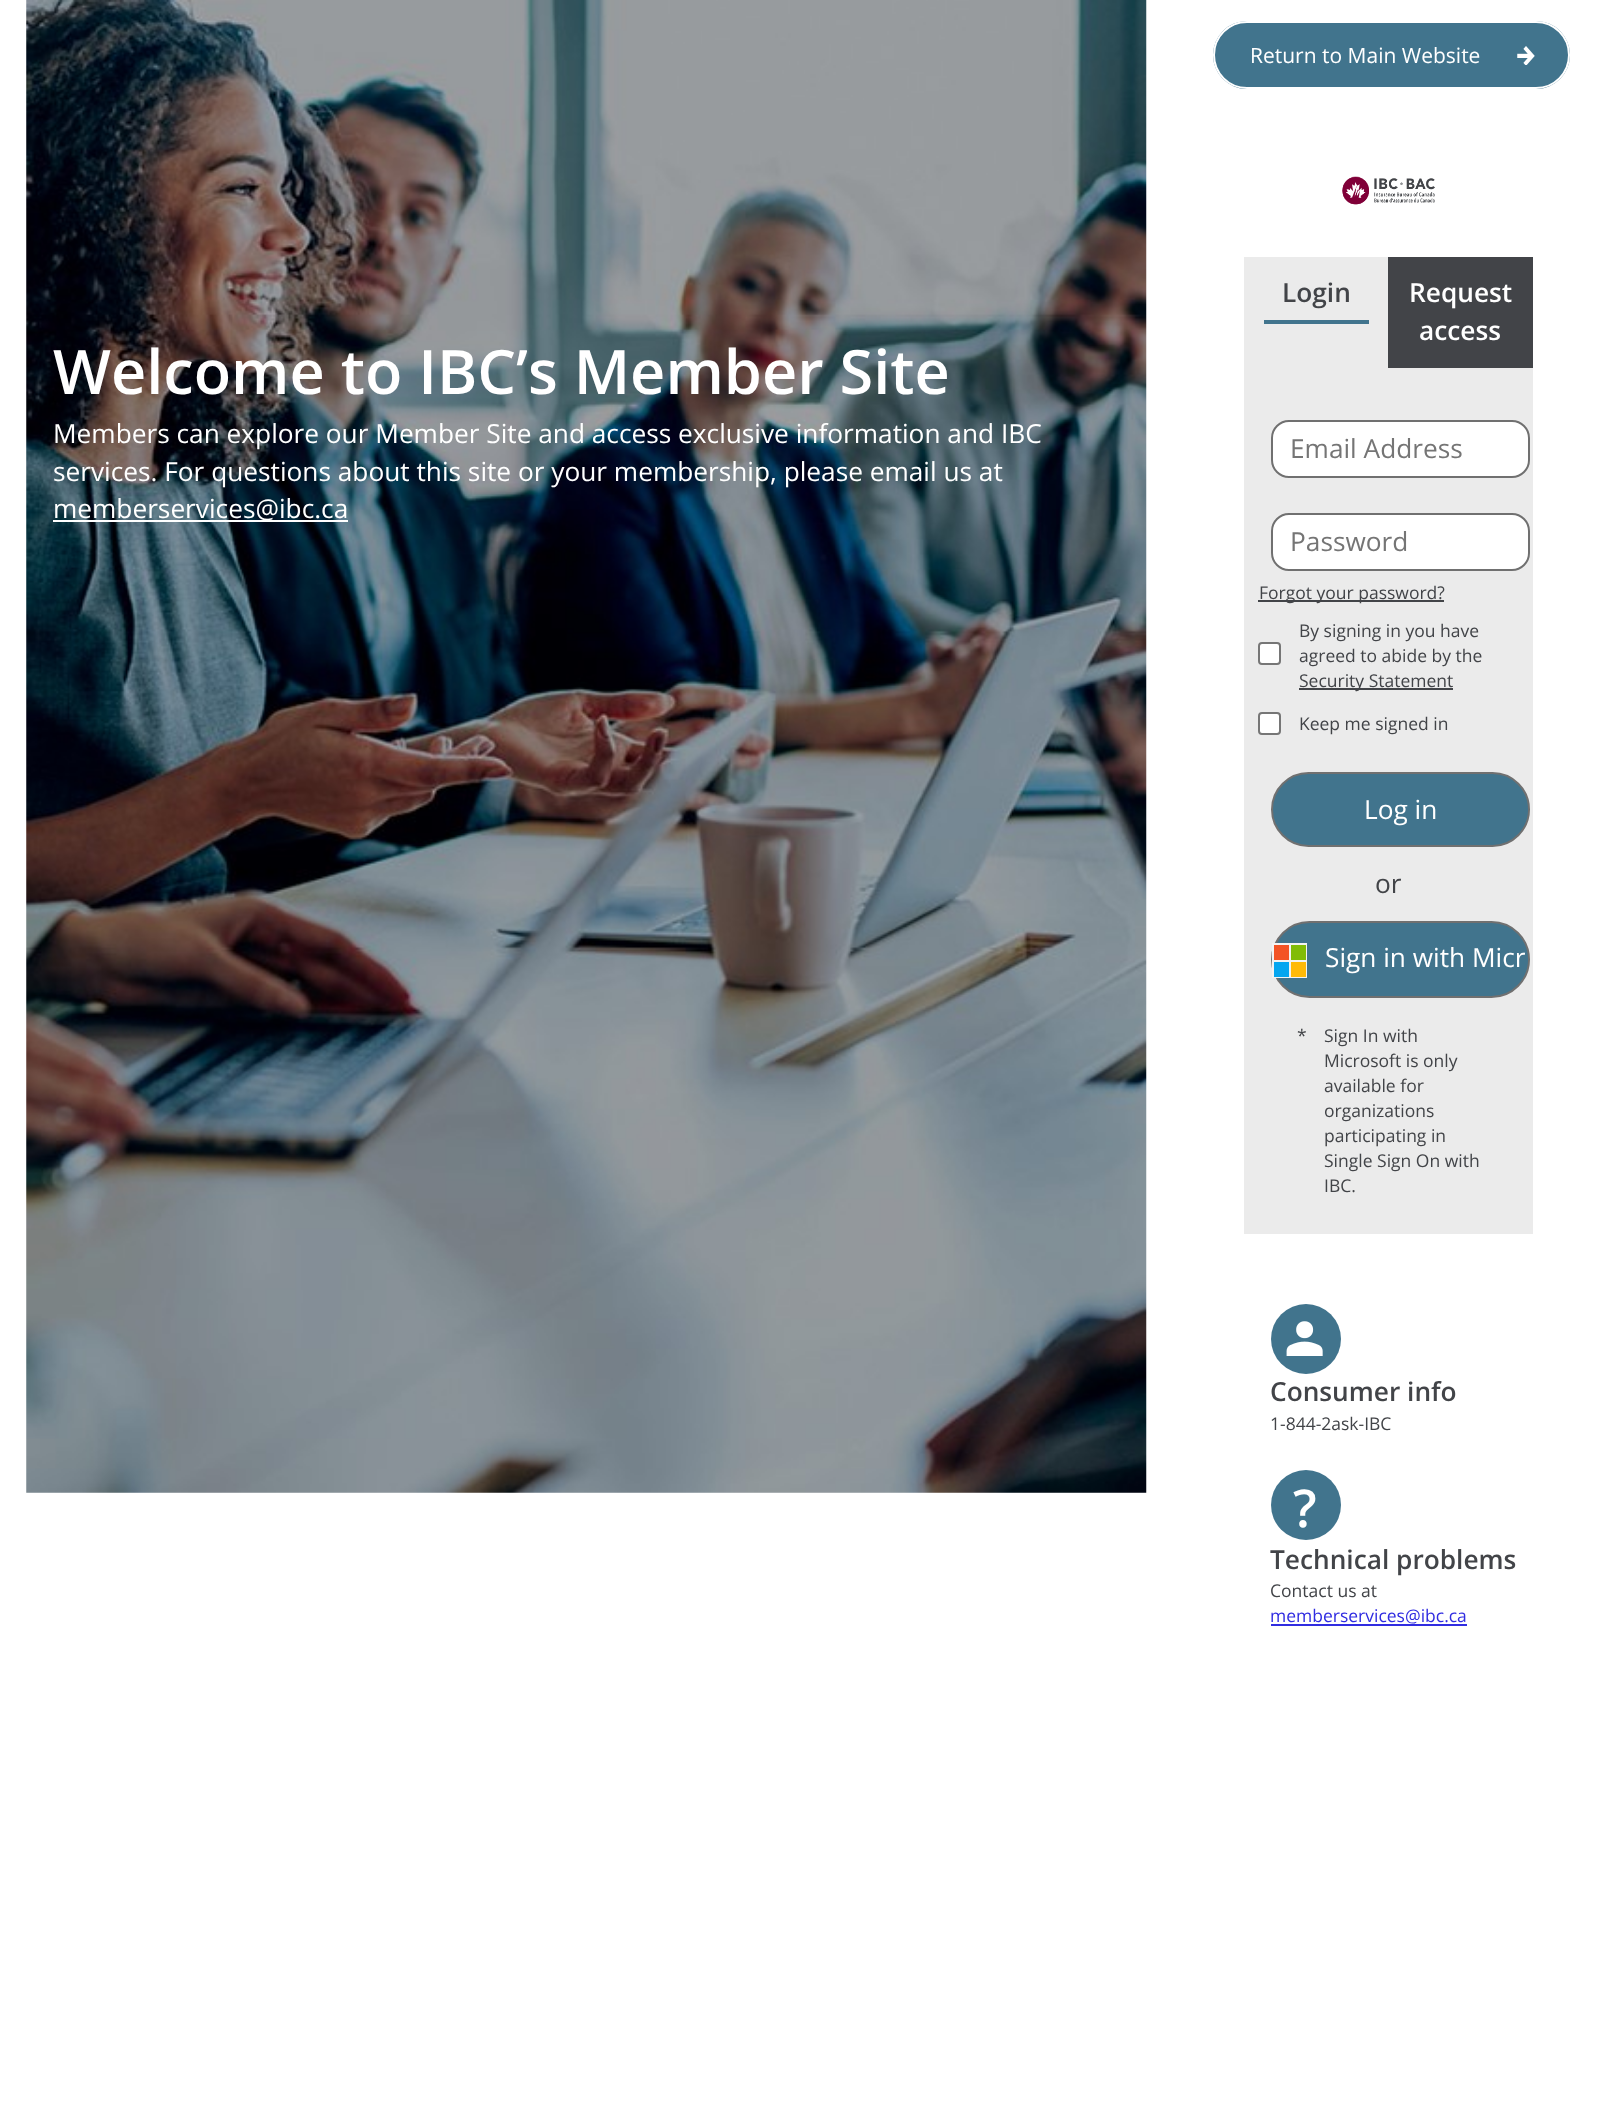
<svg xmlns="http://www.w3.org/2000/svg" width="1604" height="2108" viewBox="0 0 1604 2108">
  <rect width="100%" height="100%" fill="rgb(255,255,255)"/>
  <image x="26" y="0" width="1121" height="1493" href="pic1.png"/>
  <text x="53" y="394" font-family="Open Sans" font-size="61.25" font-weight="600" fill="rgb(255,255,255)">Welcome to IBC’s Member Site</text>
  <g font-family="Open Sans" font-size="26.25" fill="rgb(255,255,255)">
    <text>
      <tspan x="53" y="443">Members can explore our Member Site and access exclusive information and IBC</tspan>
      <tspan x="53" y="481">services. For questions about this site or your membership, please email us at</tspan>
    </text>
  </g>
  <rect x="53" y="520" width="295" height="2" fill="rgb(255,255,255)"/>
  <text x="53" y="518" font-family="Open Sans" font-size="26.25" fill="rgb(255,255,255)">memberservices@ibc.ca</text>
  <rect x="1213" y="21" width="357" height="68" rx="34" fill="rgb(65,116,141)"/>
  <image x="1517" y="46" width="18" height="19" href="pic2.png"/>
  <rect x="1214" y="22" width="355" height="66" rx="33" fill="none" stroke="rgb(255,255,255)" stroke-width="2"/>
  <text x="1250" y="63" font-family="Open Sans" font-size="21" fill="rgb(255,255,255)">Return to Main Website</text>
  <image x="1342" y="176" width="93" height="29" href="pic3.png"/>
  <rect x="1244" y="257" width="289" height="977" fill="rgb(235,235,235)"/>
  <rect x="1264" y="320" width="105" height="4" fill="rgb(65,116,141)"/>
  <text x="1282" y="302" font-family="Open Sans" font-size="26.25" font-weight="600" fill="rgb(66,68,72)">Login</text>
  <rect x="1388" y="257" width="145" height="111" fill="rgb(66,68,72)"/>
  <g font-family="Open Sans" font-size="26.25" font-weight="600" fill="rgb(255,255,255)">
    <text x="1409" y="302">Request</text>
    <text x="1419" y="340">access</text>
  </g>
  <rect x="1272" y="421" width="257" height="56" rx="17" fill="rgb(255,255,255)" stroke="rgb(112,112,112)" stroke-width="2"/>
  <text x="1290" y="458" font-family="Open Sans" font-size="26.25" fill="rgb(117,117,117)">Email Address</text>
  <rect x="1272" y="514" width="257" height="56" rx="17" fill="rgb(255,255,255)" stroke="rgb(112,112,112)" stroke-width="2"/>
  <text x="1290" y="551" font-family="Open Sans" font-size="26.25" fill="rgb(117,117,117)">Password</text>
  <rect x="1258" y="600" width="186" height="2" fill="rgb(66,68,72)"/>
  <text x="1259" y="599" font-family="Open Sans" font-size="17.5" fill="rgb(66,68,72)">Forgot your password?</text>
  <rect x="1259" y="643" width="21" height="21" rx="3" fill="rgb(255,255,255)" stroke="rgb(118,118,118)" stroke-width="2"/>
  <g font-family="Open Sans" font-size="17.5" fill="rgb(66,68,72)">
    <text>
      <tspan x="1299" y="637">By signing in you have</tspan>
      <tspan x="1299" y="662">agreed to abide by the</tspan>
    </text>
  </g>
  <rect x="1299" y="688" width="154" height="2" fill="rgb(66,68,72)"/>
  <text x="1299" y="687" font-family="Open Sans" font-size="17.5" fill="rgb(66,68,72)">Security Statement</text>
  <rect x="1259" y="713" width="21" height="21" rx="3" fill="rgb(255,255,255)" stroke="rgb(118,118,118)" stroke-width="2"/>
  <text x="1299" y="730" font-family="Open Sans" font-size="17.5" fill="rgb(66,68,72)">Keep me signed in</text>
  <rect x="1272" y="773" width="257" height="73" rx="36.5" fill="rgb(65,116,141)" stroke="rgb(112,112,112)" stroke-width="2"/>
  <text x="1364" y="819" font-family="Open Sans" font-size="26.25" fill="rgb(255,255,255)">Log in</text>
  <text x="1375" y="893" font-family="Open Sans" font-size="26.25" fill="rgb(66,68,72)">or</text>
  <rect x="1272" y="922" width="257" height="75" rx="37.5" fill="rgb(65,116,141)" stroke="rgb(112,112,112)" stroke-width="2"/>
  <rect x="1272" y="943" width="35" height="35" fill="rgb(243,243,243)"/>
  <rect x="1274" y="945" width="15" height="15" fill="rgb(243,83,37)"/>
  <rect x="1291" y="945" width="15" height="15" fill="rgb(129,188,6)"/>
  <text x="1325" y="967" font-family="Open Sans" font-size="26.25" fill="rgb(255,255,255)">Sign in with Micr</text>
  <rect x="1274" y="962" width="15" height="15" fill="rgb(5,166,240)"/>
  <rect x="1291" y="962" width="15" height="15" fill="rgb(255,186,8)"/>
  <g font-family="Open Sans" font-size="17.5" fill="rgb(66,68,72)">
    <text x="1297" y="1042">*</text>
    <text>
      <tspan x="1324" y="1042">Sign In with</tspan>
      <tspan x="1324" y="1067">Microsoft is only</tspan>
      <tspan x="1324" y="1092">available for</tspan>
      <tspan x="1324" y="1117">organizations</tspan>
      <tspan x="1324" y="1142">participating in</tspan>
      <tspan x="1324" y="1167">Single Sign On with</tspan>
      <tspan x="1324" y="1192">IBC.</tspan>
    </text>
  </g>
  <circle cx="1306" cy="1339" r="35" fill="rgb(65,116,141)"/>
  <image x="1286" y="1321" width="37" height="35" href="pic4.png"/>
  <text x="1270" y="1401" font-family="Open Sans" font-size="26.25" font-weight="600" fill="rgb(66,68,72)">Consumer info</text>
  <text x="1270" y="1430" font-family="Open Sans" font-size="17.5" fill="rgb(66,68,72)">1-844-2ask-IBC</text>
  <circle cx="1306" cy="1505" r="35" fill="rgb(65,116,141)"/>
  <text x="1293" y="1527" font-family="Open Sans" font-size="52" font-weight="600" fill="rgb(255,255,255)">?</text>
  <text x="1270" y="1569" font-family="Open Sans" font-size="26.25" font-weight="600" fill="rgb(66,68,72)">Technical problems</text>
  <text x="1270" y="1597" font-family="Open Sans" font-size="17.5" fill="rgb(66,68,72)">Contact us at</text>
  <text x="1270" y="1622" font-family="Open Sans" font-size="17.5" fill="rgb(48,44,225)">memberservices@ibc.ca</text>
  <rect x="1271" y="1624" width="196" height="2" fill="rgb(48,44,225)"/>
</svg>
